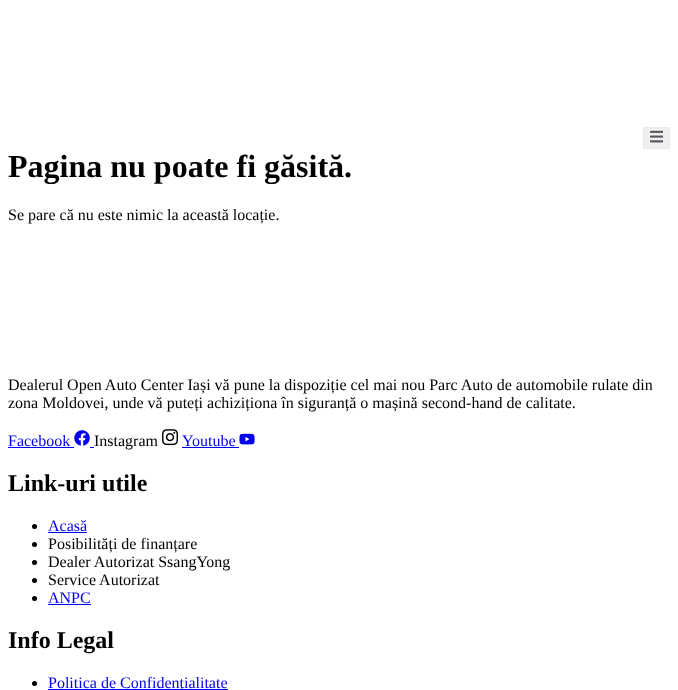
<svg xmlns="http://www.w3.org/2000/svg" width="678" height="690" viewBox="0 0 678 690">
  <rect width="100%" height="100%" fill="rgb(255,255,255)"/>
  <rect x="643.5" y="127.5" width="26" height="21" fill="rgb(239,239,239)" stroke="rgb(234,234,235)"/>
  <image x="650" y="130" width="13" height="13" href="pic1.png"/>
  <text x="8" y="177" font-family="Liberation Serif" font-size="32" font-weight="bold" fill="rgb(0,0,0)">Pagina nu poate fi găsită.</text>
  <g font-family="Liberation Serif" font-size="16" fill="rgb(0,0,0)">
    <text x="8" y="220">Se pare că nu este nimic la această locație.</text>
    <text>
      <tspan x="8" y="390">Dealerul Open Auto Center Iași vă pune la dispoziție cel mai nou Parc Auto de automobile rulate din</tspan>
      <tspan x="8" y="408">zona Moldovei, unde vă puteți achiziționa în siguranță o mașină second-hand de calitate.</tspan>
    </text>
  </g>
  <text x="8" y="446" font-family="Liberation Serif" font-size="16" fill="rgb(0,0,238)">Facebook</text>
  <rect x="8" y="447" width="66" height="1" fill="rgb(0,0,238)"/>
  <rect x="90" y="447" width="4" height="1" fill="rgb(0,0,238)"/>
  <image x="74" y="430" width="16" height="16" href="pic2.png"/>
  <text x="94" y="446" font-family="Liberation Serif" font-size="16" fill="rgb(0,0,0)">Instagram</text>
  <image x="162" y="429" width="16" height="17" href="pic3.png"/>
  <text x="182" y="446" font-family="Liberation Serif" font-size="16" fill="rgb(0,0,238)">Youtube</text>
  <rect x="182" y="447" width="57" height="1" fill="rgb(0,0,238)"/>
  <image x="239" y="433" width="16" height="12" href="pic4.png"/>
  <text x="8" y="491" font-family="Liberation Serif" font-size="24" font-weight="bold" fill="rgb(0,0,0)">Link-uri utile</text>
  <circle cx="34.5" cy="526.5" r="2.5" fill="rgb(0,0,0)"/>
  <text x="48" y="531" font-family="Liberation Serif" font-size="16" fill="rgb(0,0,238)">Acasă</text>
  <rect x="48" y="532" width="39" height="1" fill="rgb(0,0,238)"/>
  <circle cx="34.5" cy="544.5" r="2.5" fill="rgb(0,0,0)"/>
  <text x="48" y="549" font-family="Liberation Serif" font-size="16" fill="rgb(0,0,0)">Posibilități de finanțare</text>
  <circle cx="34.5" cy="562.5" r="2.5" fill="rgb(0,0,0)"/>
  <text x="48" y="567" font-family="Liberation Serif" font-size="16" fill="rgb(0,0,0)">Dealer Autorizat SsangYong</text>
  <circle cx="34.5" cy="580.5" r="2.5" fill="rgb(0,0,0)"/>
  <text x="48" y="585" font-family="Liberation Serif" font-size="16" fill="rgb(0,0,0)">Service Autorizat</text>
  <circle cx="34.5" cy="598.5" r="2.5" fill="rgb(0,0,0)"/>
  <text x="48" y="603" font-family="Liberation Serif" font-size="16" fill="rgb(0,0,238)">ANPC</text>
  <rect x="48" y="604" width="43" height="1" fill="rgb(0,0,238)"/>
  <text x="8" y="648" font-family="Liberation Serif" font-size="24" font-weight="bold" fill="rgb(0,0,0)">Info Legal</text>
  <circle cx="34.5" cy="683.5" r="2.5" fill="rgb(0,0,0)"/>
  <rect x="48" y="689" width="180" height="1" fill="rgb(0,0,238)"/>
  <text x="48" y="688" font-family="Liberation Serif" font-size="16" fill="rgb(0,0,238)">Politica de Confidențialitate</text>
</svg>
